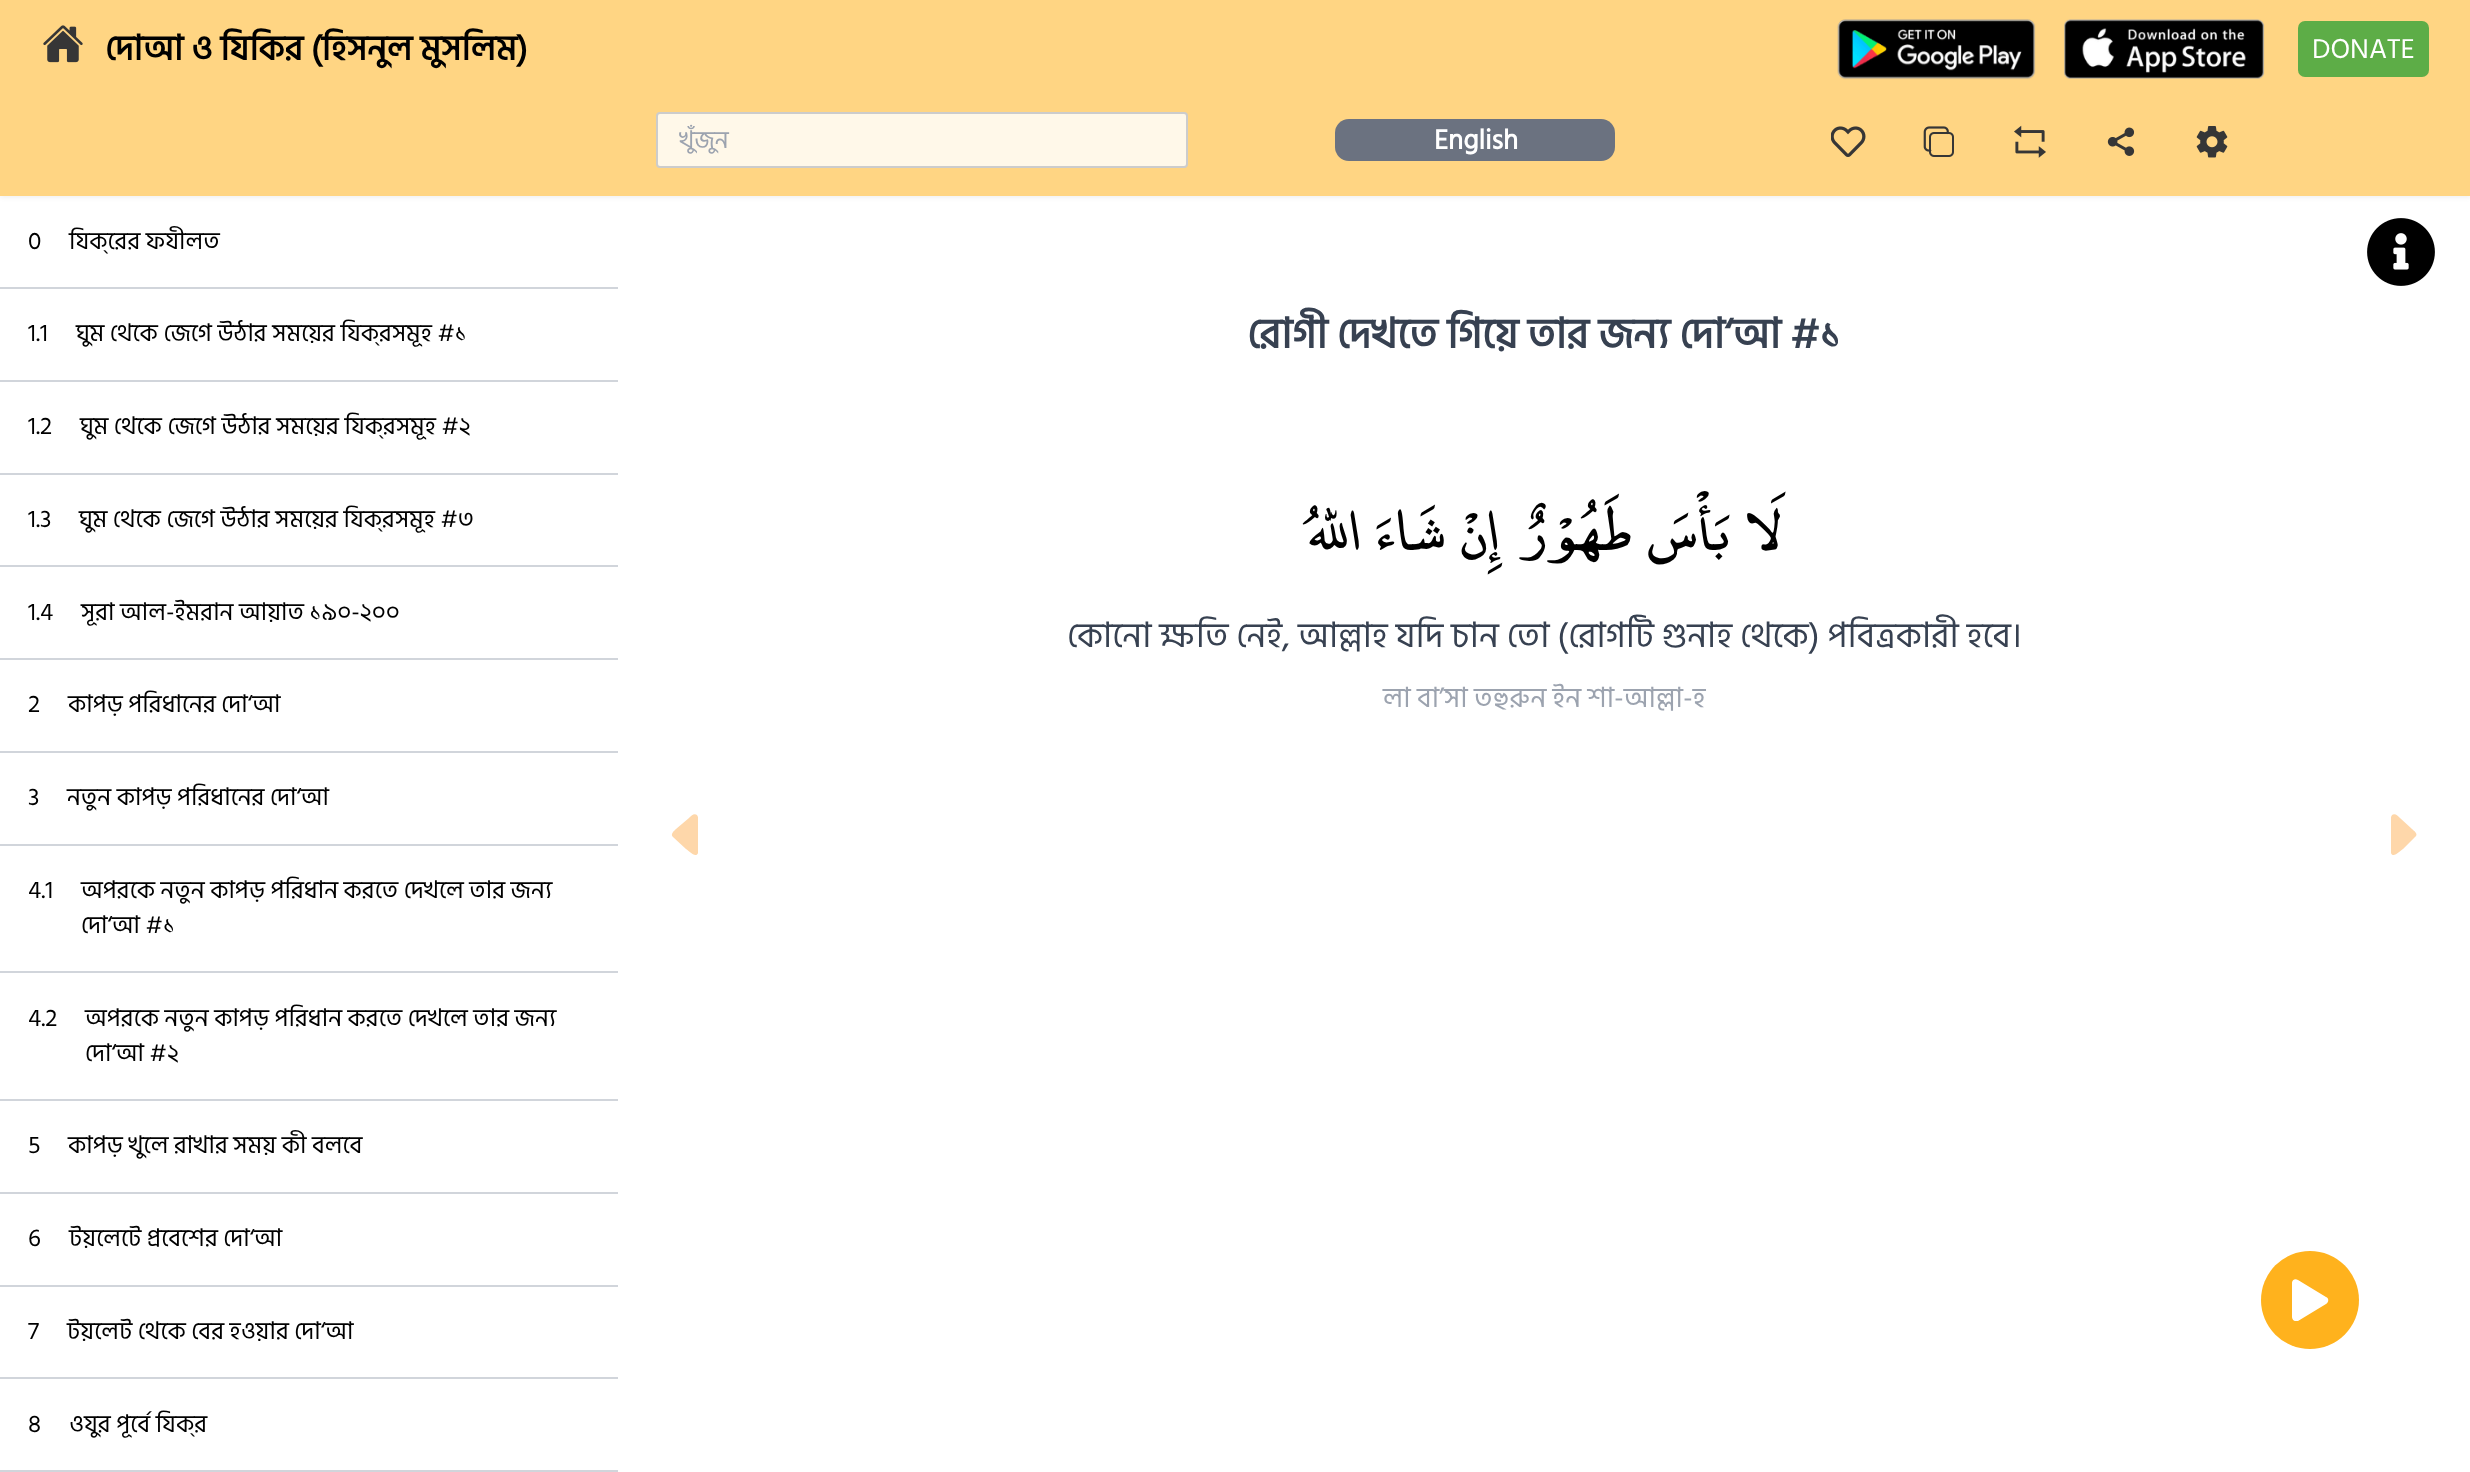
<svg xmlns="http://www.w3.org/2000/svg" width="2470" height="1472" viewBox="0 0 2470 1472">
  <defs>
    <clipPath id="clip1"><rect x="679" y="121" width="487" height="40"/></clipPath>
    <clipPath id="clip2"><rect x="2289" y="1279" width="42" height="42"/></clipPath>
  </defs>
  <rect width="100%" height="100%" fill="rgb(255,255,255)"/>
  <rect x="0" y="2" width="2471" height="196" fill="rgba(0,0,0,0.05)" filter="blur(2px)"/>
  <rect x="0" y="0" width="2470" height="196" fill="rgb(255,213,131)"/>
  <image x="43" y="25" width="40" height="38" href="pic1.png"/>
  <text x="105" y="60" font-family="Hind Siliguri" font-size="35" font-weight="bold" fill="rgb(0,0,0)">দোআ ও যিকির (হিসনুল মুসলিম)</text>
  <image x="1837" y="19" width="199" height="61" href="pic2.png"/>
  <image x="2064" y="19" width="201" height="60" href="pic3.png"/>
  <rect x="2298" y="21" width="131" height="56" rx="7" fill="rgb(93,173,71)"/>
  <text x="2312" y="58" font-family="Hind Siliguri" font-size="28" fill="rgb(255,255,255)">DONATE</text>
  <rect x="657" y="113" width="530" height="54" rx="3" fill="rgb(255,248,233)" stroke="rgb(204,204,204)" stroke-width="2"/>
  <g clip-path="url(#clip1)">
    <text x="679" y="148" font-family="Hind Siliguri" font-size="24.5" fill="rgb(156,163,175)">খুঁজুন</text>
  </g>
  <rect x="1335" y="119" width="280" height="42" rx="14" fill="rgb(107,114,128)"/>
  <text x="1434" y="149" font-family="Hind Siliguri" font-size="28" font-weight="bold" fill="rgb(255,255,255)">English</text>
  <image x="1831" y="126" width="35" height="31" href="pic4.png"/>
  <image x="1923" y="126" width="31" height="31" href="pic5.png"/>
  <image x="2014" y="125" width="32" height="33" href="pic6.png"/>
  <image x="2107" y="127" width="28" height="29" href="pic7.png"/>
  <image x="2196" y="126" width="32" height="32" href="pic8.png"/>
  <rect x="0" y="287" width="618" height="2" fill="rgb(209,213,219)"/>
  <g font-family="Hind Siliguri" font-size="24.5" fill="rgb(0,0,0)">
    <text x="28" y="249">0</text>
    <text x="69" y="249">যিক্‌রের ফযীলত</text>
  </g>
  <rect x="0" y="380" width="618" height="2" fill="rgb(209,213,219)"/>
  <g font-family="Hind Siliguri" font-size="24.5" fill="rgb(0,0,0)">
    <text x="28" y="341">1.1</text>
    <text x="76" y="341">ঘুম থেকে জেগে উঠার সময়ের যিক্‌রসমূহ #১</text>
  </g>
  <rect x="0" y="473" width="618" height="2" fill="rgb(209,213,219)"/>
  <g font-family="Hind Siliguri" font-size="24.5" fill="rgb(0,0,0)">
    <text x="28" y="434">1.2</text>
    <text x="80" y="434">ঘুম থেকে জেগে উঠার সময়ের যিক্‌রসমূহ #২</text>
  </g>
  <rect x="0" y="565" width="618" height="2" fill="rgb(209,213,219)"/>
  <g font-family="Hind Siliguri" font-size="24.5" fill="rgb(0,0,0)">
    <text x="28" y="527">1.3</text>
    <text x="79" y="527">ঘুম থেকে জেগে উঠার সময়ের যিক্‌রসমূহ #৩</text>
  </g>
  <rect x="0" y="658" width="618" height="2" fill="rgb(209,213,219)"/>
  <g font-family="Hind Siliguri" font-size="24.5" fill="rgb(0,0,0)">
    <text x="28" y="620">1.4</text>
    <text x="81" y="620">সূরা আল-ইমরান আয়াত ১৯০-২০০</text>
  </g>
  <rect x="0" y="751" width="618" height="2" fill="rgb(209,213,219)"/>
  <g font-family="Hind Siliguri" font-size="24.5" fill="rgb(0,0,0)">
    <text x="28" y="712">2</text>
    <text x="68" y="712">কাপড় পরিধানের দো‘আ</text>
  </g>
  <rect x="0" y="844" width="618" height="2" fill="rgb(209,213,219)"/>
  <g font-family="Hind Siliguri" font-size="24.5" fill="rgb(0,0,0)">
    <text x="28" y="805">3</text>
    <text x="67" y="805">নতুন কাপড় পরিধানের দো‘আ</text>
  </g>
  <rect x="0" y="971" width="618" height="2" fill="rgb(209,213,219)"/>
  <g font-family="Hind Siliguri" font-size="24.5" fill="rgb(0,0,0)">
    <text x="28" y="898">4.1</text>
    <text>
      <tspan x="81" y="898">অপরকে নতুন কাপড় পরিধান করতে দেখলে তার জন্য</tspan>
      <tspan x="81" y="933">দো‘আ #১</tspan>
    </text>
  </g>
  <rect x="0" y="1099" width="618" height="2" fill="rgb(209,213,219)"/>
  <g font-family="Hind Siliguri" font-size="24.5" fill="rgb(0,0,0)">
    <text x="28" y="1026">4.2</text>
    <text>
      <tspan x="85" y="1026">অপরকে নতুন কাপড় পরিধান করতে দেখলে তার জন্য</tspan>
      <tspan x="85" y="1061">দো‘আ #২</tspan>
    </text>
  </g>
  <rect x="0" y="1192" width="618" height="2" fill="rgb(209,213,219)"/>
  <g font-family="Hind Siliguri" font-size="24.5" fill="rgb(0,0,0)">
    <text x="28" y="1153">5</text>
    <text x="68" y="1153">কাপড় খুলে রাখার সময় কী বলবে</text>
  </g>
  <rect x="0" y="1285" width="618" height="2" fill="rgb(209,213,219)"/>
  <g font-family="Hind Siliguri" font-size="24.5" fill="rgb(0,0,0)">
    <text x="28" y="1246">6</text>
    <text x="69" y="1246">টয়লেটে প্রবেশের দো‘আ</text>
  </g>
  <rect x="0" y="1377" width="618" height="2" fill="rgb(209,213,219)"/>
  <g font-family="Hind Siliguri" font-size="24.5" fill="rgb(0,0,0)">
    <text x="28" y="1339">7</text>
    <text x="67" y="1339">টয়লেট থেকে বের হওয়ার দো‘আ</text>
  </g>
  <rect x="0" y="1470" width="618" height="2" fill="rgb(209,213,219)"/>
  <g font-family="Hind Siliguri" font-size="24.5" fill="rgb(0,0,0)">
    <text x="28" y="1432">8</text>
    <text x="69" y="1432">ওযুর পূর্বে যিক্‌র</text>
  </g>
  <text x="1247" y="348" font-family="Hind Siliguri" font-size="42" font-weight="bold" fill="rgb(55,65,81)">রোগী দেখতে গিয়ে তার জন্য দো‘আ #১</text>
  <text x="1781" y="550" font-family="'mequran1'" font-size="53.25" direction="rtl" fill="rgb(0,0,0)">لَا بَأْسَ طَهُوْرٌ إِنْ شَاءَ اللّٰهُ</text>
  <text x="1067" y="647" font-family="Hind Siliguri" font-size="35" fill="rgb(55,65,81)">কোনো ক্ষতি নেই, আল্লাহ যদি চান তো (রোগটি গুনাহ থেকে) পবিত্রকারী হবে।</text>
  <text x="1383" y="707" font-family="Hind Siliguri" font-size="28" fill="rgb(156,163,175)">লা বা’সা তহুরুন ইন শা-আল্লা-হ</text>
  <path d="M673 837L686 849C688 850 696 859 698 853V817L697 815C694 813 691 816 689 818L676 829C674 831 670 834 673 837Z" fill="rgb(254,215,170)"/>
  <path d="M2415 837L2403 849C2401 850 2393 859 2391 853V817L2392 815C2395 813 2398 816 2400 818L2412 829C2414 831 2419 834 2415 837Z" fill="rgb(254,215,170)"/>
  <circle cx="2310" cy="1300" r="49" fill="rgb(255,178,29)"/>
  <g clip-path="url(#clip2)">
    <path d="M2326 1297L2298 1280C2295 1278 2292 1280 2292 1283V1317C2292 1320 2295 1322 2298 1321L2326 1304C2329 1302 2329 1298 2326 1297Z" fill="rgb(255,255,255)"/>
  </g>
  <image x="2367" y="218" width="68" height="68" href="pic9.png"/>
</svg>
